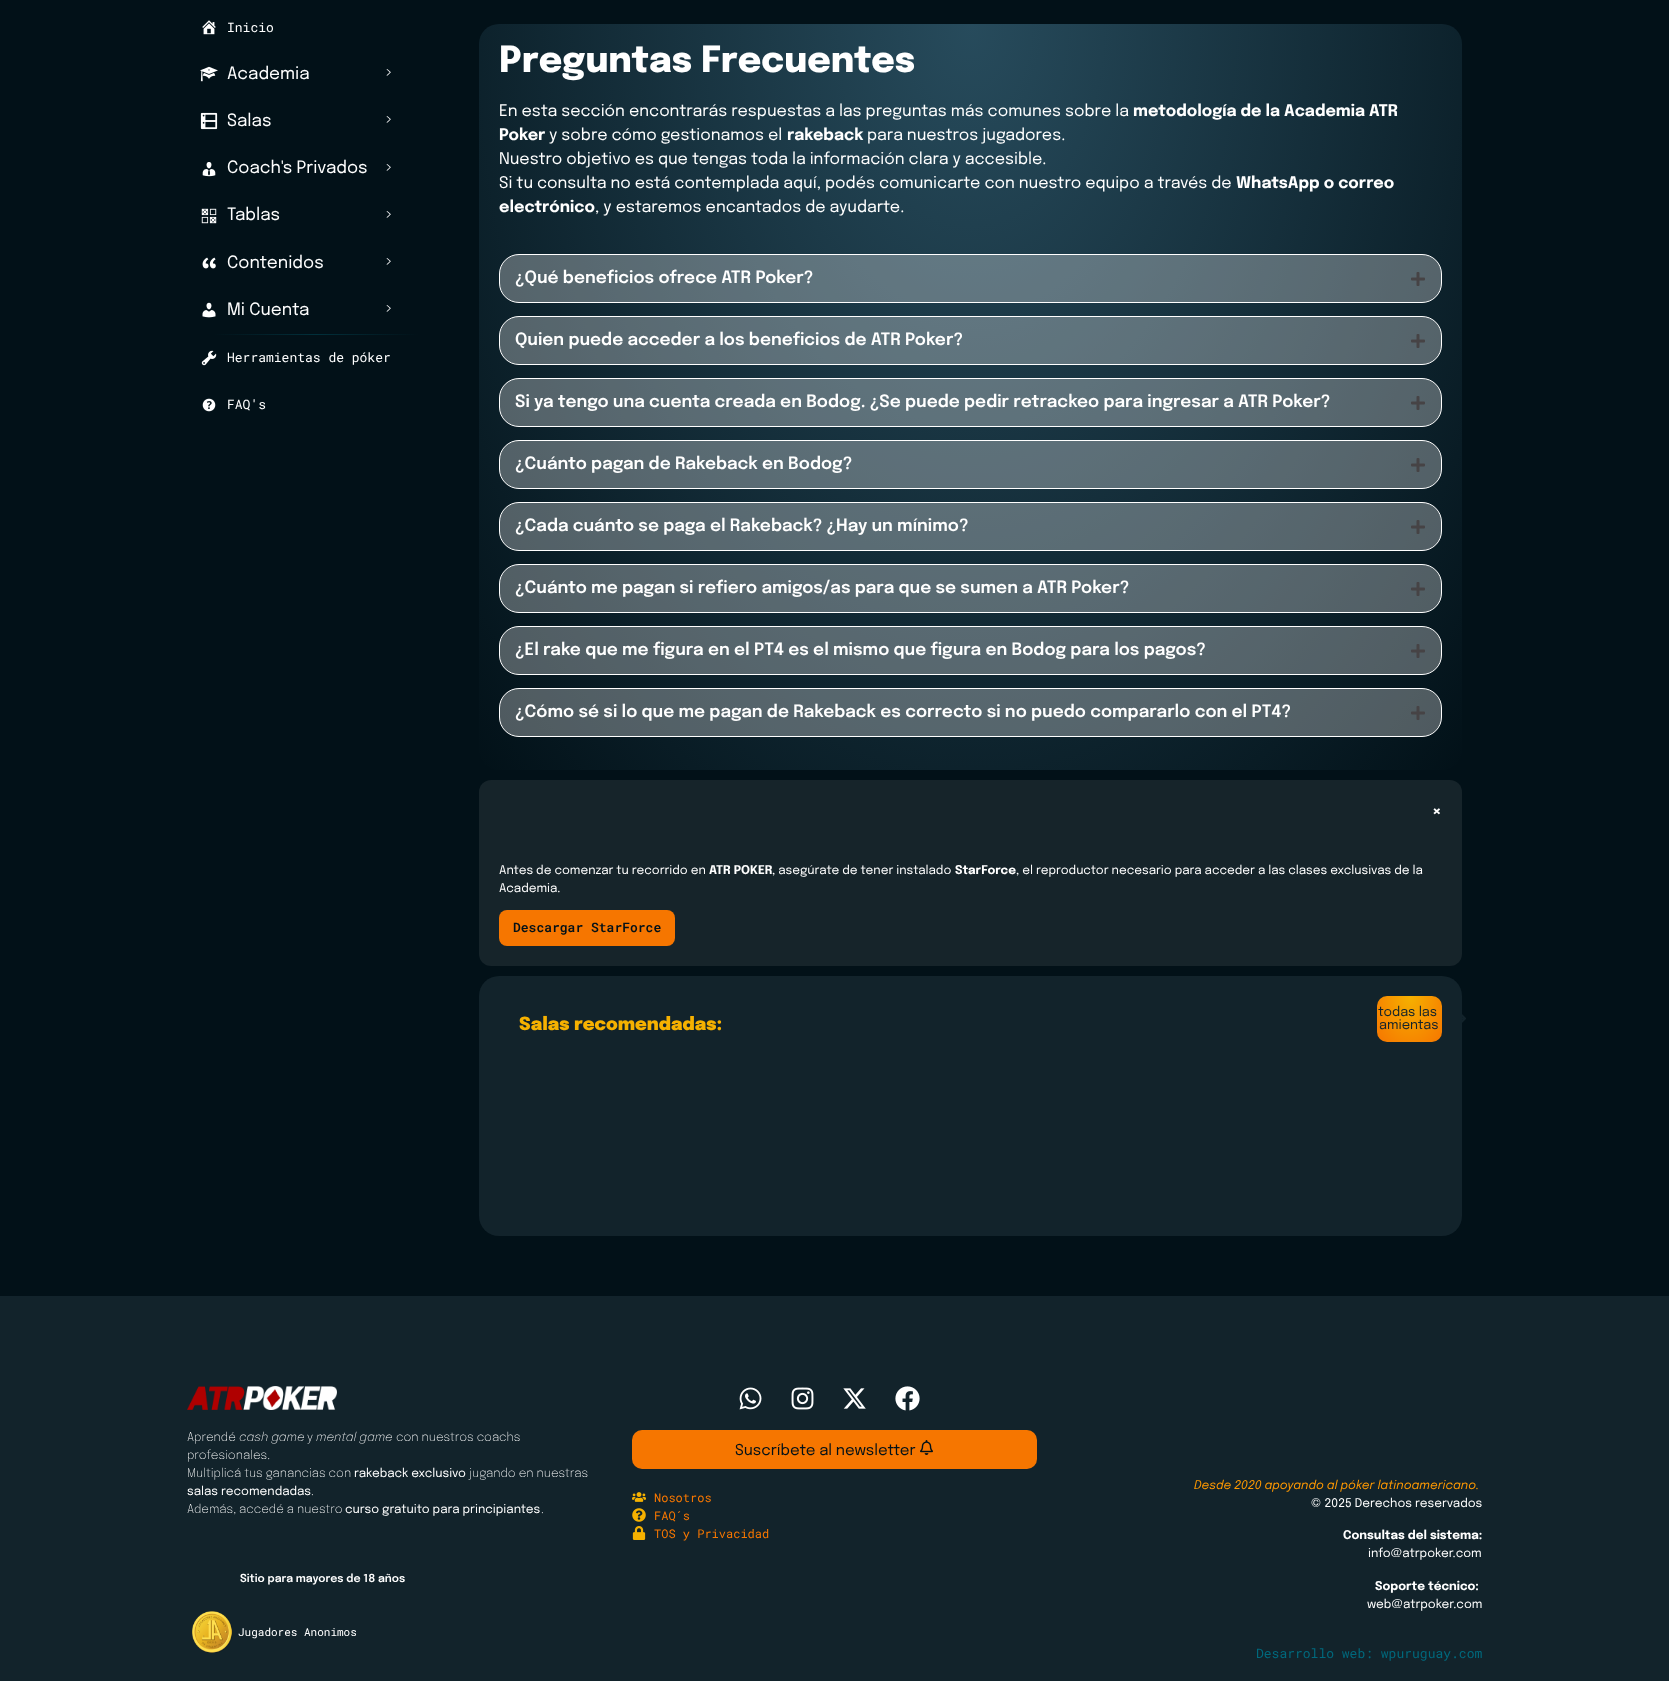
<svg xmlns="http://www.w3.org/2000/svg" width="1669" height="1681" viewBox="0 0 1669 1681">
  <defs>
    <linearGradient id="g1" gradientUnits="userSpaceOnUse" x1="213" y1="335" x2="419" y2="335"><stop offset="0" stop-color="rgb(2,17,24)"/><stop offset="0.5" stop-color="rgb(1,48,59)"/><stop offset="1" stop-color="rgb(2,17,24)"/></linearGradient>
    <radialGradient id="g2" gradientUnits="userSpaceOnUse" cx="0" cy="0" r="1" gradientTransform="matrix(695 0 0 1055 971 24)"><stop offset="0" stop-color="rgb(39,75,92)"/><stop offset="1" stop-color="rgb(2,17,24)"/></radialGradient>
    <radialGradient id="g3" gradientUnits="userSpaceOnUse" cx="0" cy="0" r="1" gradientTransform="matrix(46 0 0 65 1410 996)"><stop offset="0" stop-color="rgb(246,177,0)"/><stop offset="1" stop-color="rgb(246,118,0)"/></radialGradient>
  </defs>
  <rect width="100%" height="100%" fill="rgb(2,17,24)"/>
  <image x="202" y="20" width="14" height="15" href="pic1.png"/>
  <text x="227" y="32" font-family="Roboto Mono" font-size="13" fill="rgb(255,255,255)">Inicio</text>
  <image x="200" y="66" width="18" height="16" href="pic2.png"/>
  <text x="227" y="79" font-family="Epilogue" font-size="17" fill="rgb(255,255,255)">Academia</text>
  <text x="386" y="78" font-family="Epilogue" font-size="20" fill="rgb(255,255,255)">›</text>
  <image x="200" y="112" width="18" height="18" href="pic3.png"/>
  <text x="227" y="126" font-family="Epilogue" font-size="17" fill="rgb(255,255,255)">Salas</text>
  <text x="386" y="125" font-family="Epilogue" font-size="20" fill="rgb(255,255,255)">›</text>
  <image x="202" y="162" width="14" height="15" href="pic4.png"/>
  <text x="227" y="173" font-family="Epilogue" font-size="17" fill="rgb(255,255,255)">Coach's Privados</text>
  <text x="386" y="173" font-family="Epilogue" font-size="20" fill="rgb(255,255,255)">›</text>
  <image x="201" y="208" width="16" height="16" href="pic5.png"/>
  <text x="227" y="220" font-family="Epilogue" font-size="17" fill="rgb(255,255,255)">Tablas</text>
  <text x="386" y="220" font-family="Epilogue" font-size="20" fill="rgb(255,255,255)">›</text>
  <image x="202" y="257" width="14" height="12" href="pic6.png"/>
  <text x="227" y="268" font-family="Epilogue" font-size="17" fill="rgb(255,255,255)">Contenidos</text>
  <text x="386" y="267" font-family="Epilogue" font-size="20" fill="rgb(255,255,255)">›</text>
  <image x="202" y="302" width="14" height="16" href="pic7.png"/>
  <text x="227" y="315" font-family="Epilogue" font-size="17" fill="rgb(255,255,255)">Mi Cuenta</text>
  <text x="386" y="314" font-family="Epilogue" font-size="20" fill="rgb(255,255,255)">›</text>
  <rect x="213" y="334" width="206" height="1" fill="url(#g1)"/>
  <image x="201" y="350" width="16" height="16" href="pic8.png"/>
  <text x="227" y="362" font-family="Roboto Mono" font-size="13" fill="rgb(255,255,255)">Herramientas de póker</text>
  <image x="202" y="398" width="14" height="14" href="pic9.png"/>
  <text x="227" y="409" font-family="Roboto Mono" font-size="13" fill="rgb(255,255,255)">FAQ's</text>
  <rect x="479" y="24" width="983" height="746" rx="20" fill="url(#g2)"/>
  <text x="499" y="72" font-family="Epilogue" font-size="36" font-weight="800" fill="rgb(255,255,255)">Preguntas Frecuentes</text>
  <text x="499" y="116" font-family="Epilogue" font-size="16" fill="rgb(255,255,255)">En esta sección encontrarás respuestas a las preguntas más comunes sobre la</text>
  <g font-family="Epilogue" font-size="16" font-weight="bold" fill="rgb(255,255,255)">
    <text x="1133" y="116">metodología de la Academia ATR</text>
    <text x="499" y="140">Poker</text>
  </g>
  <text x="549" y="140" font-family="Epilogue" font-size="16" fill="rgb(255,255,255)">y sobre cómo gestionamos el</text>
  <text x="787" y="140" font-family="Epilogue" font-size="16" font-weight="bold" fill="rgb(255,255,255)">rakeback</text>
  <g font-family="Epilogue" font-size="16" fill="rgb(255,255,255)">
    <text x="867" y="140">para nuestros jugadores.</text>
    <text>
      <tspan x="499" y="164">Nuestro objetivo es que tengas toda la información clara y accesible.</tspan>
      <tspan x="499" y="188">Si tu consulta no está contemplada aquí, podés comunicarte con nuestro equipo a través de</tspan>
    </text>
  </g>
  <g font-family="Epilogue" font-size="16" font-weight="bold" fill="rgb(255,255,255)">
    <text x="1236" y="188">WhatsApp o correo</text>
    <text x="499" y="212">electrónico</text>
  </g>
  <text x="595" y="212" font-family="Epilogue" font-size="16" fill="rgb(255,255,255)">, y estaremos encantados de ayudarte.</text>
  <rect x="499.5" y="254.5" width="942" height="48" rx="19.5" fill="rgba(255,255,255,0.3)" stroke="rgb(255,255,255)"/>
  <text x="515" y="283" font-family="Epilogue" font-size="17" font-weight="600" fill="rgb(255,255,255)">¿Qué beneficios ofrece ATR Poker?</text>
  <image x="1411" y="272" width="14" height="14" href="pic10.png"/>
  <rect x="499.5" y="316.5" width="942" height="48" rx="19.5" fill="rgba(255,255,255,0.3)" stroke="rgb(255,255,255)"/>
  <text x="515" y="345" font-family="Epilogue" font-size="17" font-weight="600" fill="rgb(255,255,255)">Quien puede acceder a los beneficios de ATR Poker?</text>
  <image x="1411" y="334" width="14" height="14" href="pic11.png"/>
  <rect x="499.5" y="378.5" width="942" height="48" rx="19.5" fill="rgba(255,255,255,0.3)" stroke="rgb(255,255,255)"/>
  <text x="515" y="407" font-family="Epilogue" font-size="17" font-weight="600" fill="rgb(255,255,255)">Si ya tengo una cuenta creada en Bodog. ¿Se puede pedir retrackeo para ingresar a ATR Poker?</text>
  <image x="1411" y="396" width="14" height="14" href="pic12.png"/>
  <rect x="499.5" y="440.5" width="942" height="48" rx="19.5" fill="rgba(255,255,255,0.3)" stroke="rgb(255,255,255)"/>
  <text x="515" y="469" font-family="Epilogue" font-size="17" font-weight="600" fill="rgb(255,255,255)">¿Cuánto pagan de Rakeback en Bodog?</text>
  <image x="1411" y="458" width="14" height="14" href="pic13.png"/>
  <rect x="499.5" y="502.5" width="942" height="48" rx="19.5" fill="rgba(255,255,255,0.3)" stroke="rgb(255,255,255)"/>
  <text x="515" y="531" font-family="Epilogue" font-size="17" font-weight="600" fill="rgb(255,255,255)">¿Cada cuánto se paga el Rakeback? ¿Hay un mínimo?</text>
  <image x="1411" y="520" width="14" height="14" href="pic14.png"/>
  <rect x="499.5" y="564.5" width="942" height="48" rx="19.5" fill="rgba(255,255,255,0.3)" stroke="rgb(255,255,255)"/>
  <text x="515" y="593" font-family="Epilogue" font-size="17" font-weight="600" fill="rgb(255,255,255)">¿Cuánto me pagan si refiero amigos/as para que se sumen a ATR Poker?</text>
  <image x="1411" y="582" width="14" height="14" href="pic15.png"/>
  <rect x="499.5" y="626.5" width="942" height="48" rx="19.5" fill="rgba(255,255,255,0.3)" stroke="rgb(255,255,255)"/>
  <text x="515" y="655" font-family="Epilogue" font-size="17" font-weight="600" fill="rgb(255,255,255)">¿El rake que me figura en el PT4 es el mismo que figura en Bodog para los pagos?</text>
  <image x="1411" y="644" width="14" height="14" href="pic16.png"/>
  <rect x="499.5" y="688.5" width="942" height="48" rx="19.5" fill="rgba(255,255,255,0.3)" stroke="rgb(255,255,255)"/>
  <text x="515" y="717" font-family="Epilogue" font-size="17" font-weight="600" fill="rgb(255,255,255)">¿Cómo sé si lo que me pagan de Rakeback es correcto si no puedo compararlo con el PT4?</text>
  <image x="1411" y="706" width="14" height="14" href="pic17.png"/>
  <rect x="479" y="780" width="983" height="186" rx="12" fill="rgb(22,36,42)"/>
  <text x="1431" y="816" font-family="Epilogue" font-size="18" font-weight="bold" fill="rgb(255,255,255)">×</text>
  <text x="499" y="874" font-family="Epilogue" font-size="12" fill="rgb(255,255,255)">Antes de comenzar tu recorrido en</text>
  <text x="709" y="874" font-family="Epilogue" font-size="12" font-weight="bold" fill="rgb(255,255,255)">ATR POKER</text>
  <text x="772" y="874" font-family="Epilogue" font-size="12" fill="rgb(255,255,255)">, asegúrate de tener instalado</text>
  <text x="955" y="874" font-family="Epilogue" font-size="12" font-weight="bold" fill="rgb(255,255,255)">StarForce</text>
  <g font-family="Epilogue" font-size="12" fill="rgb(255,255,255)">
    <text x="1016" y="874">, el reproductor necesario para acceder a las clases exclusivas de la</text>
    <text x="499" y="892">Academia.</text>
  </g>
  <rect x="499" y="910" width="176" height="36" rx="8" fill="rgb(246,118,0)"/>
  <text x="513" y="932" font-family="Roboto Mono" font-size="13" font-weight="600" fill="rgb(2,17,24)">Descargar StarForce</text>
  <rect x="479" y="976" width="983" height="260" rx="20" fill="rgb(18,35,43)"/>
  <text x="519" y="1030" font-family="Epilogue" font-size="18" font-weight="900" fill="rgb(246,177,0)">Salas recomendadas:</text>
  <rect x="1377" y="996" width="65" height="46" rx="10" fill="url(#g3)"/>
  <g font-family="Epilogue" font-size="13" fill="rgb(18,35,43)">
    <text x="1378" y="1016">todas las</text>
    <text x="1379" y="1029">amientas</text>
  </g>
  <image x="1462" y="1014" width="4" height="9" href="pic18.png"/>
  <rect x="0" y="1296" width="1669" height="385" fill="rgb(18,35,43)"/>
  <image x="187" y="1386" width="150" height="24" href="pic19.png"/>
  <text x="187" y="1441" font-family="Epilogue" font-size="12" font-weight="200" fill="rgb(255,255,255)">Aprendé</text>
  <text x="239" y="1441" font-family="Epilogue" font-size="12" font-weight="200" font-style="italic" fill="rgb(255,255,255)">cash game</text>
  <text x="307" y="1441" font-family="Epilogue" font-size="12" font-weight="200" fill="rgb(255,255,255)">y</text>
  <text x="316" y="1441" font-family="Epilogue" font-size="12" font-weight="200" font-style="italic" fill="rgb(255,255,255)">mental game</text>
  <g font-family="Epilogue" font-size="12" font-weight="200" fill="rgb(255,255,255)">
    <text x="396" y="1441">con nuestros coachs</text>
    <text>
      <tspan x="187" y="1459">profesionales.</tspan>
      <tspan x="187" y="1477">Multiplicá tus ganancias con</tspan>
    </text>
  </g>
  <text x="354" y="1477" font-family="Epilogue" font-size="12" fill="rgb(255,255,255)">rakeback exclusivo</text>
  <text x="469" y="1477" font-family="Epilogue" font-size="12" font-weight="200" fill="rgb(255,255,255)">jugando en nuestras</text>
  <text x="187" y="1495" font-family="Epilogue" font-size="12" fill="rgb(255,255,255)">salas recomendadas</text>
  <g font-family="Epilogue" font-size="12" font-weight="200" fill="rgb(255,255,255)">
    <text x="311" y="1495">.</text>
    <text x="187" y="1513">Además, accedé a nuestro</text>
  </g>
  <text x="345" y="1513" font-family="Epilogue" font-size="12" fill="rgb(255,255,255)">curso gratuito para principiantes</text>
  <text x="541" y="1513" font-family="Epilogue" font-size="12" font-weight="200" fill="rgb(255,255,255)">.</text>
  <text x="240" y="1582" font-family="Epilogue" font-size="11" font-weight="600" fill="rgb(255,255,255)">Sitio para mayores de 18 años</text>
  <image x="192" y="1611" width="41" height="42" href="pic20.png"/>
  <text x="238" y="1636" font-family="Roboto Mono" font-size="11" fill="rgb(255,255,255)">Jugadores Anonimos</text>
  <image x="739" y="1387" width="23" height="23" href="pic21.png"/>
  <image x="791" y="1387" width="23" height="23" href="pic22.png"/>
  <image x="843" y="1388" width="23" height="21" href="pic23.png"/>
  <image x="895" y="1386" width="25" height="25" href="pic24.png"/>
  <rect x="632" y="1430" width="405" height="39" rx="10" fill="rgb(246,118,0)"/>
  <text x="735" y="1455" font-family="Epilogue" font-size="15" fill="rgb(2,17,24)">Suscríbete al newsletter</text>
  <image x="920" y="1440" width="13" height="15" href="pic25.png"/>
  <image x="632" y="1492" width="14" height="10" href="pic26.png"/>
  <text x="654" y="1502" font-family="Roboto Mono" font-size="12" fill="rgb(246,118,0)">Nosotros</text>
  <image x="632" y="1508" width="14" height="14" href="pic27.png"/>
  <text x="654" y="1520" font-family="Roboto Mono" font-size="12" fill="rgb(246,118,0)">FAQ´s</text>
  <image x="632" y="1526" width="14" height="14" href="pic28.png"/>
  <text x="654" y="1538" font-family="Roboto Mono" font-size="12" fill="rgb(246,118,0)">TOS y Privacidad</text>
  <text x="1194" y="1489" font-family="Epilogue" font-size="12" font-style="italic" fill="rgb(255,153,0)">Desde 2020 apoyando al póker latinoamericano.</text>
  <text x="1311" y="1507" font-family="Epilogue" font-size="12" fill="rgb(255,255,255)">© 2025 Derechos reservados</text>
  <text x="1343" y="1539" font-family="Epilogue" font-size="12" font-weight="bold" fill="rgb(255,255,255)">Consultas del sistema:</text>
  <text x="1368" y="1557" font-family="Epilogue" font-size="12" fill="rgb(255,255,255)">info@atrpoker.com</text>
  <text x="1375" y="1590" font-family="Epilogue" font-size="12" font-weight="bold" fill="rgb(255,255,255)">Soporte técnico:</text>
  <text x="1367" y="1608" font-family="Epilogue" font-size="12" fill="rgb(255,255,255)">web@atrpoker.com</text>
  <text x="1256" y="1658" font-family="Roboto Mono" font-size="13" fill="rgb(0,105,125)">Desarrollo web: wpuruguay.com</text>
</svg>
